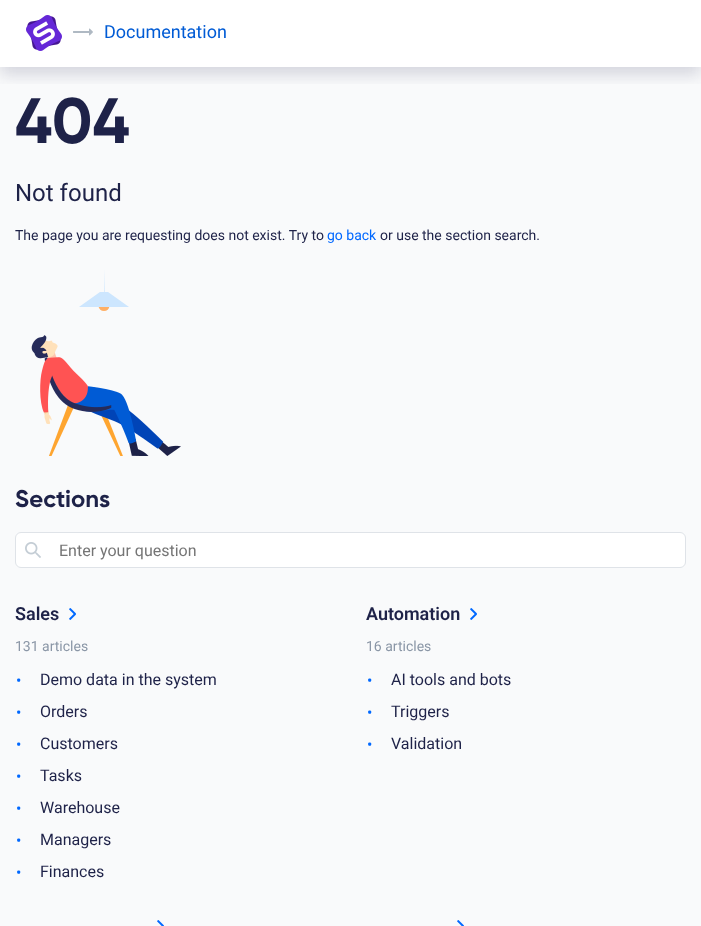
<svg xmlns="http://www.w3.org/2000/svg" width="701" height="926" viewBox="0 0 701 926">
  <defs>
    <clipPath id="clip1"><rect x="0" y="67" width="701" height="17"/></clipPath>
    <linearGradient id="g1" gradientUnits="userSpaceOnUse" x1="104" y1="269" x2="104" y2="292"><stop offset="0" stop-color="rgb(249,250,251)"/><stop offset="1" stop-color="rgb(218,236,253)"/></linearGradient>
  </defs>
  <rect width="100%" height="100%" fill="rgb(255,255,255)"/>
  <rect x="0" y="67" width="701" height="859" fill="rgb(249,250,251)"/>
  <g clip-path="url(#clip1)">
    <rect x="0" y="8" width="701" height="67" fill="rgba(30,34,72,0.16)" filter="blur(8px)"/>
  </g>
  <image x="26" y="15" width="36" height="36" href="pic1.png"/>
  <image x="73" y="28" width="20" height="8" href="pic2.png"/>
  <text x="104" y="38" font-family="Roboto" font-size="18" fill="rgb(0,91,213)">Documentation</text>
  <text x="15" y="143" font-family="Gilroy" font-size="64" font-weight="bold" fill="rgb(30,34,72)">404</text>
  <text x="15" y="201" font-family="Roboto" font-size="24" fill="rgb(30,34,72)">Not found</text>
  <text x="15" y="240" font-family="Roboto" font-size="14" fill="rgb(30,34,72)">The page you are requesting does not exist. Try to</text>
  <text x="327" y="240" font-family="Roboto" font-size="14" fill="rgb(0,104,255)">go back</text>
  <text x="380" y="240" font-family="Roboto" font-size="14" fill="rgb(30,34,72)">or use the section search.</text>
  <circle cx="104" cy="305.5" r="5.5" fill="rgb(255,176,102)"/>
  <path d="M100 292H108L129 307H79Z" fill="rgb(205,230,254)"/>
  <rect x="104" y="269" width="1" height="23" fill="url(#g1)"/>
  <image x="31" y="335" width="150" height="121" href="pic3.png"/>
  <text x="15" y="507" font-family="Gilroy" font-size="24" font-weight="bold" fill="rgb(30,34,72)">Sections</text>
  <rect x="15.5" y="532.5" width="670" height="35" rx="5.5" fill="rgb(255,255,255)" stroke="rgb(223,227,232)"/>
  <image x="25" y="542" width="16" height="16" href="pic4.png"/>
  <text x="59" y="556" font-family="Roboto" font-size="16" fill="rgb(117,117,117)">Enter your question</text>
  <text x="15" y="620" font-family="Roboto" font-size="18" font-weight="600" fill="rgb(30,34,72)">Sales</text>
  <image x="69" y="608" width="7" height="12" href="pic5.png"/>
  <text x="15" y="651" font-family="Roboto" font-size="14" fill="rgb(138,150,166)">131 articles</text>
  <text x="16" y="686" font-family="Roboto" font-size="16" fill="rgb(0,104,255)">•</text>
  <text x="40" y="685" font-family="Roboto" font-size="16" fill="rgb(30,34,72)">Demo data in the system</text>
  <text x="16" y="718" font-family="Roboto" font-size="16" fill="rgb(0,104,255)">•</text>
  <text x="40" y="717" font-family="Roboto" font-size="16" fill="rgb(30,34,72)">Orders</text>
  <text x="16" y="750" font-family="Roboto" font-size="16" fill="rgb(0,104,255)">•</text>
  <text x="40" y="749" font-family="Roboto" font-size="16" fill="rgb(30,34,72)">Customers</text>
  <text x="16" y="782" font-family="Roboto" font-size="16" fill="rgb(0,104,255)">•</text>
  <text x="40" y="781" font-family="Roboto" font-size="16" fill="rgb(30,34,72)">Tasks</text>
  <text x="16" y="814" font-family="Roboto" font-size="16" fill="rgb(0,104,255)">•</text>
  <text x="40" y="813" font-family="Roboto" font-size="16" fill="rgb(30,34,72)">Warehouse</text>
  <text x="16" y="846" font-family="Roboto" font-size="16" fill="rgb(0,104,255)">•</text>
  <text x="40" y="845" font-family="Roboto" font-size="16" fill="rgb(30,34,72)">Managers</text>
  <text x="16" y="878" font-family="Roboto" font-size="16" fill="rgb(0,104,255)">•</text>
  <text x="40" y="877" font-family="Roboto" font-size="16" fill="rgb(30,34,72)">Finances</text>
  <text x="366" y="620" font-family="Roboto" font-size="18" font-weight="600" fill="rgb(30,34,72)">Automation</text>
  <image x="470" y="608" width="7" height="12" href="pic5.png"/>
  <text x="366" y="651" font-family="Roboto" font-size="14" fill="rgb(138,150,166)">16 articles</text>
  <text x="367" y="686" font-family="Roboto" font-size="16" fill="rgb(0,104,255)">•</text>
  <text x="391" y="685" font-family="Roboto" font-size="16" fill="rgb(30,34,72)">AI tools and bots</text>
  <text x="367" y="718" font-family="Roboto" font-size="16" fill="rgb(0,104,255)">•</text>
  <text x="391" y="717" font-family="Roboto" font-size="16" fill="rgb(30,34,72)">Triggers</text>
  <text x="367" y="750" font-family="Roboto" font-size="16" fill="rgb(0,104,255)">•</text>
  <text x="391" y="749" font-family="Roboto" font-size="16" fill="rgb(30,34,72)">Validation</text>
  <image x="157" y="920" width="7" height="6" href="pic6.png"/>
  <image x="457" y="920" width="7" height="6" href="pic6.png"/>
</svg>
